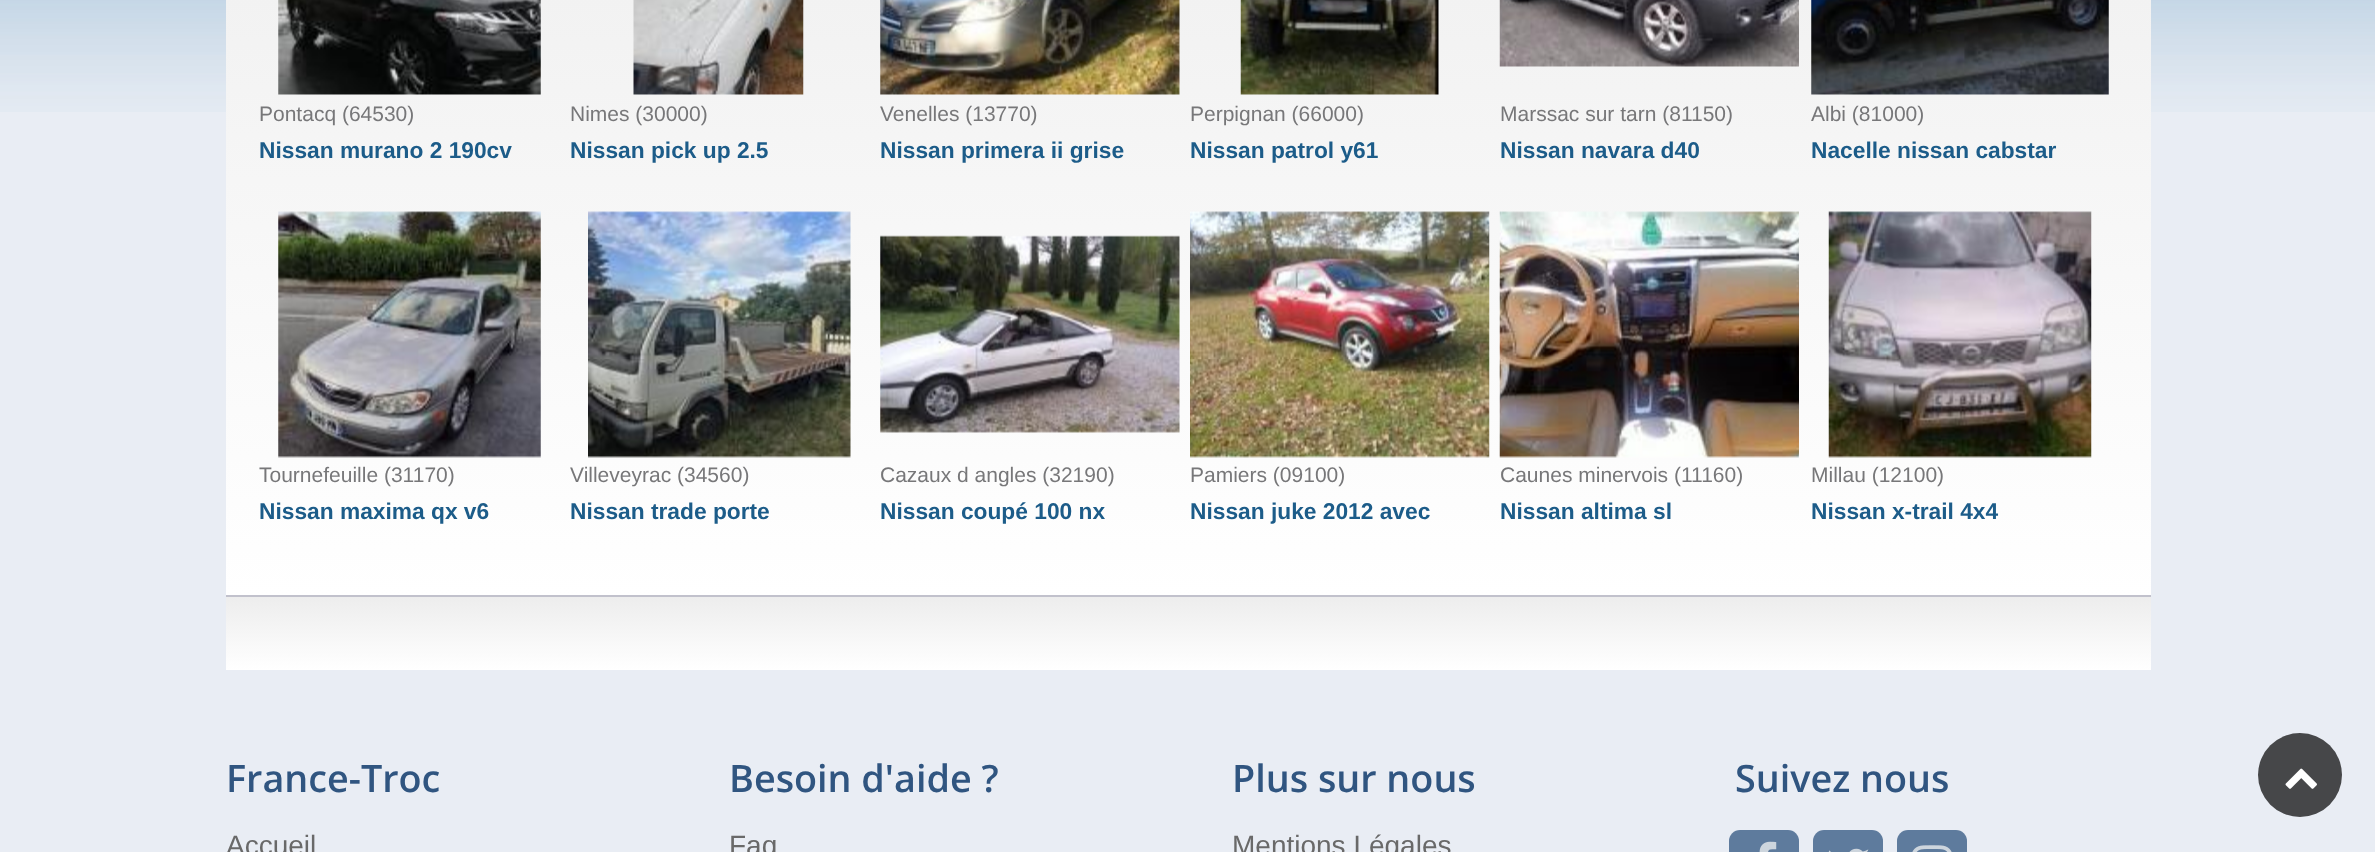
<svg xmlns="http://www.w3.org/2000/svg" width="2375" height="852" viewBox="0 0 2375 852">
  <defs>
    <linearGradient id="g1" gradientUnits="userSpaceOnUse" x1="1188" y1="-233" x2="1188" y2="595"><stop offset="0" stop-color="rgb(237,237,237)"/><stop offset="1" stop-color="rgb(255,255,255)"/></linearGradient>
    <linearGradient id="g2" gradientUnits="userSpaceOnUse" x1="1188" y1="597" x2="1188" y2="670"><stop offset="0" stop-color="rgb(237,237,237)"/><stop offset="1" stop-color="rgb(255,255,255)"/></linearGradient>
  </defs>
  <rect width="100%" height="100%" fill="rgb(233,237,244)"/>
  <image x="0" y="0" width="2375" height="112" href="pic1.png"/>
  <rect x="226" y="0" width="1925" height="595" fill="url(#g1)"/>
  <image x="278" y="0" width="263" height="95" href="pic2.png"/>
  <text x="259" y="121" font-family="Liberation Sans" font-size="21" fill="rgb(119,119,121)">Pontacq (64530)</text>
  <text x="259" y="158" font-family="Liberation Sans" font-size="22.75" font-weight="bold" fill="rgb(28,92,137)">Nissan murano 2 190cv</text>
  <image x="633" y="0" width="171" height="95" href="pic3.png"/>
  <text x="570" y="121" font-family="Liberation Sans" font-size="21" fill="rgb(119,119,121)">Nimes (30000)</text>
  <text x="570" y="158" font-family="Liberation Sans" font-size="22.75" font-weight="bold" fill="rgb(28,92,137)">Nissan pick up 2.5</text>
  <image x="880" y="0" width="300" height="95" href="pic4.png"/>
  <text x="880" y="121" font-family="Liberation Sans" font-size="21" fill="rgb(119,119,121)">Venelles (13770)</text>
  <text x="880" y="158" font-family="Liberation Sans" font-size="22.75" font-weight="bold" fill="rgb(28,92,137)">Nissan primera ii grise</text>
  <image x="1240" y="0" width="199" height="95" href="pic5.png"/>
  <text x="1190" y="121" font-family="Liberation Sans" font-size="21" fill="rgb(119,119,121)">Perpignan (66000)</text>
  <text x="1190" y="158" font-family="Liberation Sans" font-size="22.75" font-weight="bold" fill="rgb(28,92,137)">Nissan patrol y61</text>
  <image x="1499" y="0" width="300" height="67" href="pic6.png"/>
  <text x="1500" y="121" font-family="Liberation Sans" font-size="21" fill="rgb(119,119,121)">Marssac sur tarn (81150)</text>
  <text x="1500" y="158" font-family="Liberation Sans" font-size="22.75" font-weight="bold" fill="rgb(28,92,137)">Nissan navara d40</text>
  <image x="1811" y="0" width="298" height="95" href="pic7.png"/>
  <text x="1811" y="121" font-family="Liberation Sans" font-size="21" fill="rgb(119,119,121)">Albi (81000)</text>
  <text x="1811" y="158" font-family="Liberation Sans" font-size="22.75" font-weight="bold" fill="rgb(28,92,137)">Nacelle nissan cabstar</text>
  <image x="278" y="211" width="263" height="247" href="pic8.png"/>
  <text x="259" y="482" font-family="Liberation Sans" font-size="21" fill="rgb(119,119,121)">Tournefeuille (31170)</text>
  <text x="259" y="519" font-family="Liberation Sans" font-size="22.75" font-weight="bold" fill="rgb(28,92,137)">Nissan maxima qx v6</text>
  <image x="588" y="211" width="263" height="247" href="pic9.png"/>
  <text x="570" y="482" font-family="Liberation Sans" font-size="21" fill="rgb(119,119,121)">Villeveyrac (34560)</text>
  <text x="570" y="519" font-family="Liberation Sans" font-size="22.75" font-weight="bold" fill="rgb(28,92,137)">Nissan trade porte</text>
  <image x="880" y="235" width="300" height="198" href="pic10.png"/>
  <text x="880" y="482" font-family="Liberation Sans" font-size="21" fill="rgb(119,119,121)">Cazaux d angles (32190)</text>
  <text x="880" y="519" font-family="Liberation Sans" font-size="22.75" font-weight="bold" fill="rgb(28,92,137)">Nissan coupé 100 nx</text>
  <image x="1190" y="211" width="300" height="247" href="pic11.png"/>
  <text x="1190" y="482" font-family="Liberation Sans" font-size="21" fill="rgb(119,119,121)">Pamiers (09100)</text>
  <text x="1190" y="519" font-family="Liberation Sans" font-size="22.75" font-weight="bold" fill="rgb(28,92,137)">Nissan juke 2012 avec</text>
  <image x="1499" y="211" width="300" height="247" href="pic12.png"/>
  <text x="1500" y="482" font-family="Liberation Sans" font-size="21" fill="rgb(119,119,121)">Caunes minervois (11160)</text>
  <text x="1500" y="519" font-family="Liberation Sans" font-size="22.75" font-weight="bold" fill="rgb(28,92,137)">Nissan altima sl</text>
  <image x="1828" y="211" width="264" height="247" href="pic13.png"/>
  <text x="1811" y="482" font-family="Liberation Sans" font-size="21" fill="rgb(119,119,121)">Millau (12100)</text>
  <text x="1811" y="519" font-family="Liberation Sans" font-size="22.75" font-weight="bold" fill="rgb(28,92,137)">Nissan x-trail 4x4</text>
  <rect x="226" y="597" width="1925" height="73" fill="url(#g2)"/>
  <rect x="226" y="595" width="1925" height="2" fill="rgb(193,193,204)"/>
  <text x="226" y="792" font-family="Open Sans" font-size="37.75" font-weight="600" fill="rgb(48,85,128)">France-Troc</text>
  <text x="226" y="855" font-family="Liberation Sans" font-size="28" fill="rgb(105,105,105)">Accueil</text>
  <text x="729" y="792" font-family="Open Sans" font-size="37.75" font-weight="600" fill="rgb(48,85,128)">Besoin d'aide ?</text>
  <text x="729" y="855" font-family="Liberation Sans" font-size="28" fill="rgb(105,105,105)">Faq</text>
  <text x="1232" y="792" font-family="Open Sans" font-size="37.75" font-weight="600" fill="rgb(48,85,128)">Plus sur nous</text>
  <text x="1232" y="855" font-family="Liberation Sans" font-size="28" fill="rgb(105,105,105)">Mentions Légales</text>
  <text x="1735" y="792" font-family="Open Sans" font-size="37.75" font-weight="600" fill="rgb(48,85,128)">Suivez nous</text>
  <rect x="1729" y="830" width="70" height="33" rx="11" fill="rgb(94,123,157)"/>
  <image x="1759" y="841" width="18" height="11" href="pic14.png"/>
  <rect x="1813" y="830" width="70" height="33" rx="11" fill="rgb(94,123,157)"/>
  <image x="1828" y="848" width="41" height="4" href="pic15.png"/>
  <rect x="1897" y="830" width="70" height="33" rx="11" fill="rgb(94,123,157)"/>
  <image x="1912" y="845" width="40" height="7" href="pic16.png"/>
  <circle cx="2300" cy="775" r="42" fill="rgba(0,0,0,0.7)"/>
  <image x="2285" y="768" width="32" height="21" href="pic17.png"/>
</svg>
